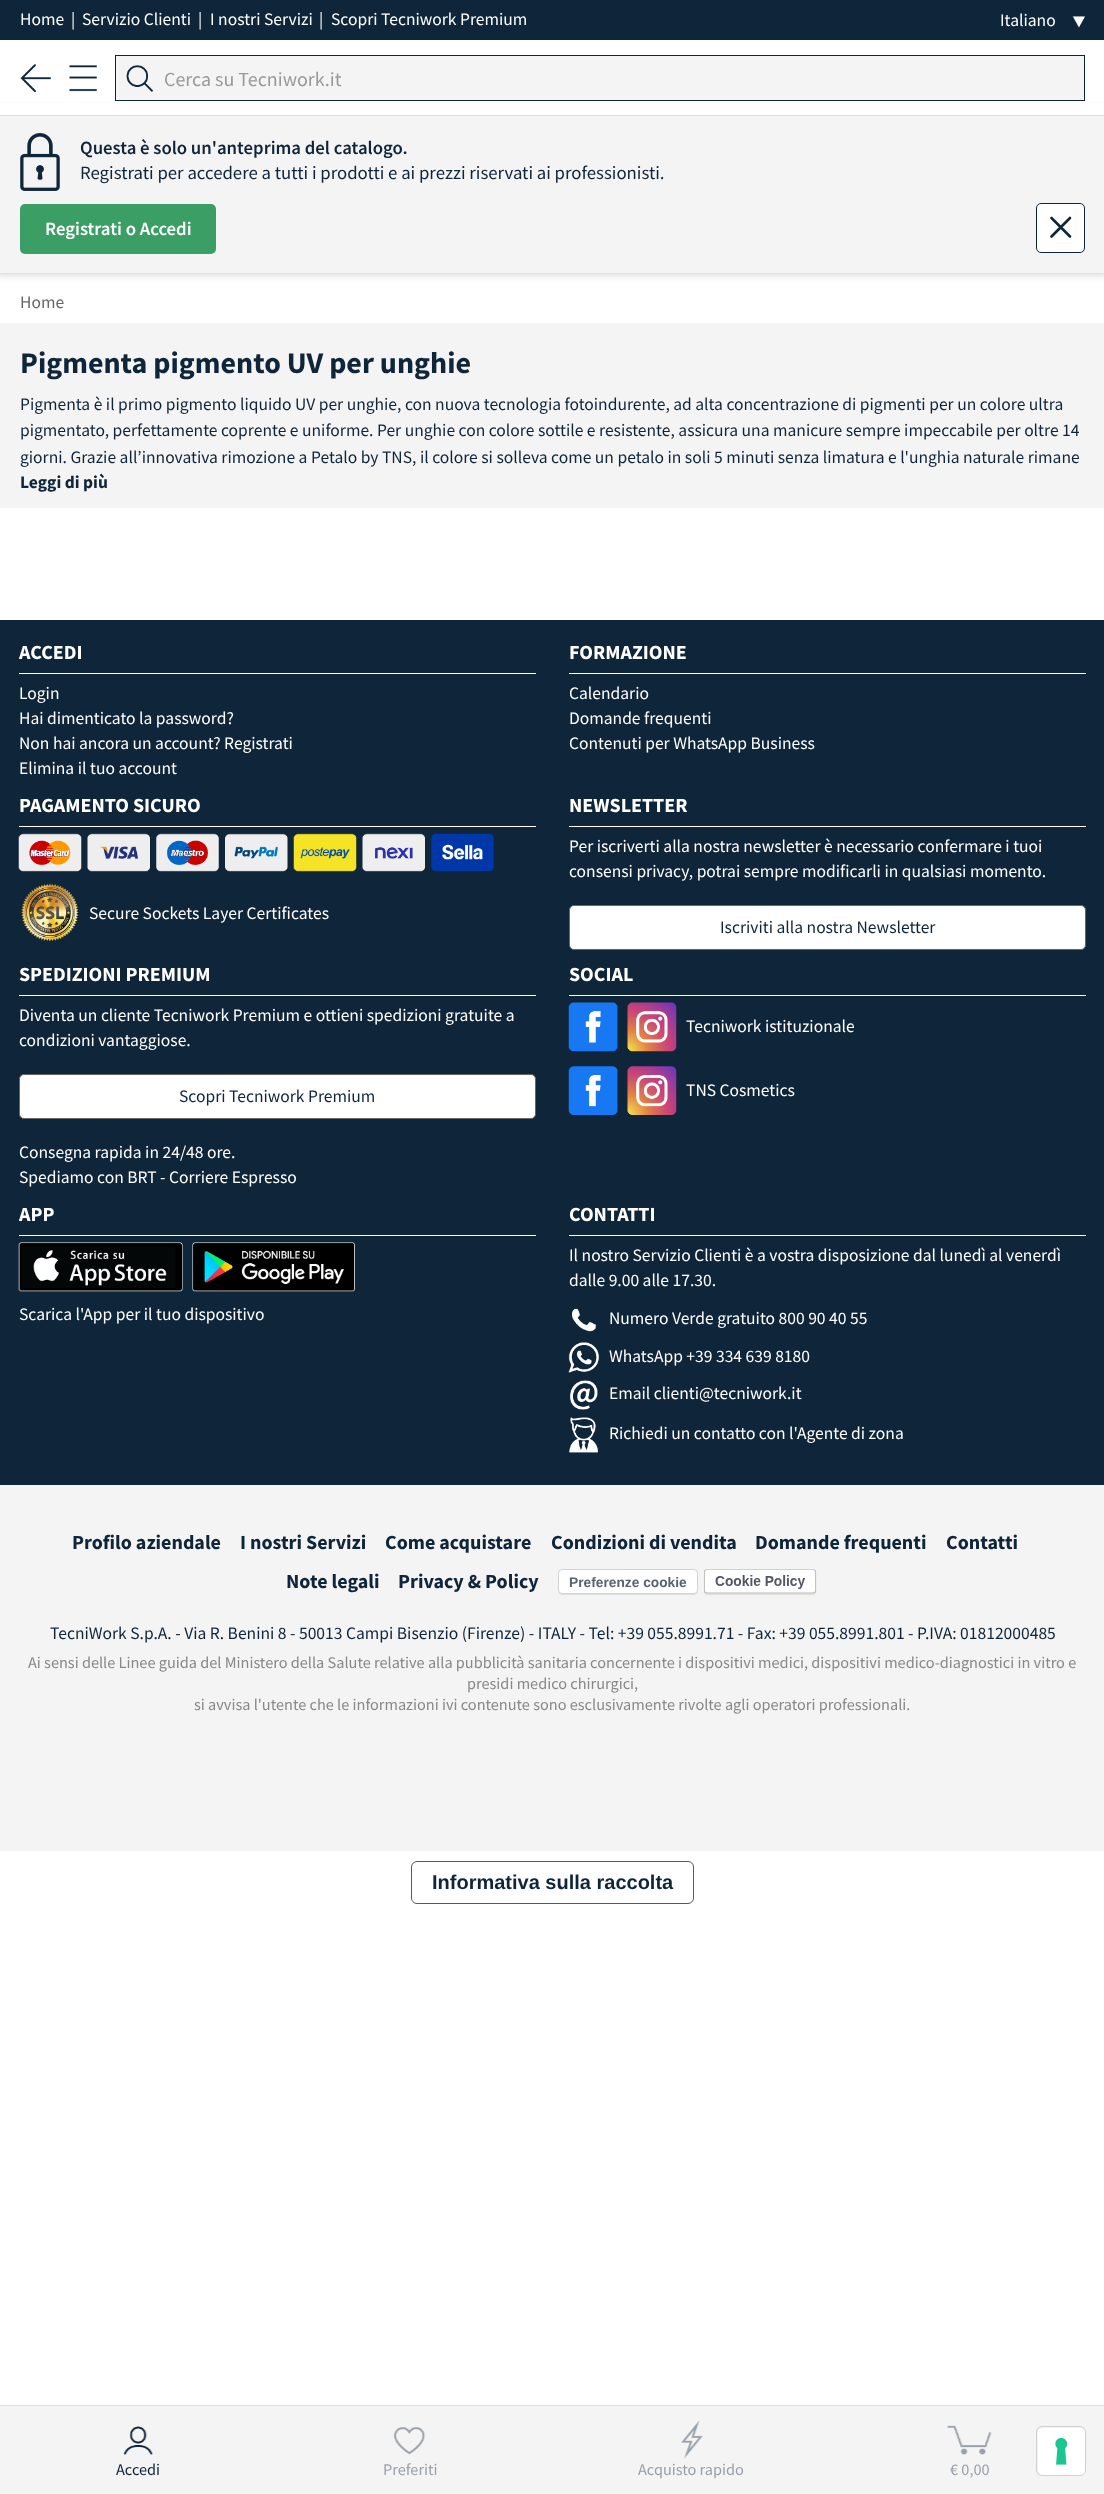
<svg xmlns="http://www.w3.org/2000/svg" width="1104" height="2494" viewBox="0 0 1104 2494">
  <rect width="100%" height="100%" fill="rgb(255,255,255)"/>
  <rect x="0" y="0" width="1104" height="40" fill="rgb(15,37,58)"/>
  <g font-family="Source Sans Pro" font-size="17.5" fill="rgb(255,255,255)">
    <text x="20" y="25">Home</text>
    <text x="71" y="25">|</text>
    <text x="82" y="25">Servizio Clienti</text>
    <text x="198" y="25">|</text>
    <text x="210" y="25">I nostri Servizi</text>
    <text x="319" y="25">|</text>
    <text x="331" y="25">Scopri Tecniwork Premium</text>
  </g>
  <image x="1072" y="16" width="13" height="12" href="pic1.png"/>
  <text x="1000" y="26" font-family="Source Sans Pro" font-size="17.5" fill="rgb(255,255,255)">Italiano</text>
  <rect x="-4" y="110" width="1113" height="164" fill="rgba(0,0,0,0.2)" filter="blur(4px)"/>
  <rect x="0" y="103" width="1104" height="12" fill="rgb(255,255,255)"/>
  <rect x="0" y="115" width="1104" height="1" fill="rgb(221,221,221)"/>
  <image x="20" y="64" width="31" height="28" href="pic2.png"/>
  <image x="69" y="65" width="28" height="27" href="pic3.png"/>
  <rect x="115" y="55" width="970" height="1" fill="rgb(15,37,58)"/>
  <rect x="1084" y="55" width="1" height="46" fill="rgb(15,37,58)"/>
  <rect x="115" y="100" width="970" height="1" fill="rgb(15,37,58)"/>
  <rect x="115" y="55" width="1" height="46" fill="rgb(15,37,58)"/>
  <rect x="116" y="56" width="968" height="44" fill="rgb(244,244,244)"/>
  <image x="126" y="65" width="27" height="27" href="pic4.png"/>
  <text x="164" y="86" font-family="Source Sans Pro" font-size="20" fill="rgb(153,153,153)">Cerca su Tecniwork.it</text>
  <rect x="0" y="2406" width="1104" height="88" fill="rgb(244,244,244)"/>
  <rect x="0" y="2405" width="1104" height="1" fill="rgb(221,221,221)"/>
  <image x="123" y="2426" width="30" height="29" href="pic5.png"/>
  <text x="116" y="2475" font-family="Source Sans Pro" font-size="16.25" fill="rgb(15,37,58)">Accedi</text>
  <image x="393" y="2427" width="33" height="28" href="pic6.png"/>
  <text x="383" y="2475" font-family="Source Sans Pro" font-size="16.25" fill="rgb(152,161,170)">Preferiti</text>
  <image x="681" y="2421" width="22" height="37" href="pic7.png"/>
  <text x="638" y="2475" font-family="Source Sans Pro" font-size="16.25" fill="rgb(152,161,170)">Acquisto rapido</text>
  <image x="947" y="2425" width="45" height="30" href="pic8.png"/>
  <text x="950" y="2475" font-family="Source Sans Pro" font-size="16.25" fill="rgb(152,161,170)">€ 0,00</text>
  <rect x="0" y="116" width="1104" height="157" fill="rgb(244,244,244)"/>
  <image x="20" y="133" width="40" height="58" href="pic9.png"/>
  <text x="80" y="154" font-family="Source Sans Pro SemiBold" font-size="18.75" font-weight="600" fill="rgb(15,37,58)">Questa è solo un'anteprima del catalogo.</text>
  <text x="80" y="179" font-family="Source Sans Pro" font-size="18.75" fill="rgb(15,37,58)">Registrati per accedere a tutti i prodotti e ai prezzi riservati ai professionisti.</text>
  <rect x="20" y="204" width="196" height="50" rx="5" fill="rgb(59,159,101)"/>
  <text x="45" y="235" font-family="Source Sans Pro SemiBold" font-size="18.75" font-weight="600" fill="rgb(255,255,255)">Registrati o Accedi</text>
  <rect x="1036.5" y="203.5" width="48" height="49" rx="4.5" fill="rgb(255,255,255)" stroke="rgb(15,37,58)"/>
  <path d="M1051.5 218L1070 236.5M1051.5 236.5L1070 218" fill="none" stroke="rgb(15,37,58)" stroke-width="2.6" stroke-linecap="round"/>
  <text x="20" y="308" font-family="Source Sans Pro" font-size="17.5" fill="rgb(102,102,102)">Home</text>
  <rect x="0" y="323" width="1104" height="185" fill="rgb(244,244,244)"/>
  <text x="20" y="373" font-family="Source Sans Pro" font-size="30" font-weight="bold" fill="rgb(15,37,58)">Pigmenta pigmento UV per unghie</text>
  <g font-family="Source Sans Pro" font-size="17.5" fill="rgb(15,37,58)">
    <text>
      <tspan x="20" y="410">Pigmenta è il primo pigmento liquido UV per unghie, con nuova tecnologia fotoindurente, ad alta concentrazione di pigmenti per un colore ultra</tspan>
      <tspan x="20" y="436">pigmentato, perfettamente coprente e uniforme. Per unghie con colore sottile e resistente, assicura una manicure sempre impeccabile per oltre 14</tspan>
      <tspan x="20" y="463">giorni. Grazie all’innovativa rimozione a Petalo by TNS, il colore si solleva come un petalo in soli 5 minuti senza limatura e l'unghia naturale rimane</tspan>
    </text>
  </g>
  <text x="20" y="488" font-family="Source Sans Pro" font-size="17.5" font-weight="bold" fill="rgb(15,37,58)">Leggi di più</text>
  <rect x="0" y="620" width="1104" height="865" fill="rgb(15,37,58)"/>
  <rect x="19" y="673" width="517" height="1" fill="rgb(255,255,255)"/>
  <text x="19" y="659" font-family="Source Sans Pro" font-size="20" font-weight="bold" fill="rgb(255,255,255)">ACCEDI</text>
  <g font-family="Source Sans Pro" font-size="17.5" fill="rgb(255,255,255)">
    <text>
      <tspan x="19" y="699">Login</tspan>
      <tspan x="19" y="724">Hai dimenticato la password?</tspan>
      <tspan x="19" y="749">Non hai ancora un account? Registrati</tspan>
      <tspan x="19" y="774">Elimina il tuo account</tspan>
    </text>
  </g>
  <rect x="569" y="673" width="517" height="1" fill="rgb(255,255,255)"/>
  <text x="569" y="659" font-family="Source Sans Pro" font-size="20" font-weight="bold" fill="rgb(255,255,255)">FORMAZIONE</text>
  <g font-family="Source Sans Pro" font-size="17.5" fill="rgb(255,255,255)">
    <text>
      <tspan x="569" y="699">Calendario</tspan>
      <tspan x="569" y="724">Domande frequenti</tspan>
      <tspan x="569" y="749">Contenuti per WhatsApp Business</tspan>
    </text>
  </g>
  <rect x="19" y="826" width="517" height="1" fill="rgb(255,255,255)"/>
  <text x="19" y="812" font-family="Source Sans Pro" font-size="20" font-weight="bold" fill="rgb(255,255,255)">PAGAMENTO SICURO</text>
  <image x="18" y="833" width="64" height="39" href="pic10.png"/>
  <image x="87" y="833" width="63" height="39" href="pic11.png"/>
  <image x="156" y="833" width="63" height="39" href="pic12.png"/>
  <image x="225" y="833" width="63" height="39" href="pic13.png"/>
  <image x="293" y="833" width="64" height="39" href="pic14.png"/>
  <image x="362" y="833" width="63" height="39" href="pic15.png"/>
  <image x="431" y="833" width="63" height="39" href="pic16.png"/>
  <image x="21" y="883" width="58" height="59" href="pic17.png"/>
  <text x="89" y="919" font-family="Source Sans Pro" font-size="17.5" fill="rgb(255,255,255)">Secure Sockets Layer Certificates</text>
  <rect x="569" y="826" width="517" height="1" fill="rgb(255,255,255)"/>
  <text x="569" y="812" font-family="Source Sans Pro" font-size="20" font-weight="bold" fill="rgb(255,255,255)">NEWSLETTER</text>
  <g font-family="Source Sans Pro" font-size="17.5" fill="rgb(255,255,255)">
    <text>
      <tspan x="569" y="852">Per iscriverti alla nostra newsletter è necessario confermare i tuoi</tspan>
      <tspan x="569" y="877">consensi privacy, potrai sempre modificarli in qualsiasi momento.</tspan>
    </text>
  </g>
  <rect x="569.5" y="905.5" width="516" height="44" rx="4.5" fill="rgb(255,255,255)" stroke="rgb(102,102,102)"/>
  <text x="720" y="933" font-family="Source Sans Pro" font-size="17.5" fill="rgb(15,37,58)">Iscriviti alla nostra Newsletter</text>
  <rect x="19" y="995" width="517" height="1" fill="rgb(255,255,255)"/>
  <text x="19" y="981" font-family="Source Sans Pro" font-size="20" font-weight="bold" fill="rgb(255,255,255)">SPEDIZIONI PREMIUM</text>
  <g font-family="Source Sans Pro" font-size="17.5" fill="rgb(255,255,255)">
    <text>
      <tspan x="19" y="1021">Diventa un cliente Tecniwork Premium e ottieni spedizioni gratuite a</tspan>
      <tspan x="19" y="1046">condizioni vantaggiose.</tspan>
    </text>
  </g>
  <rect x="19.5" y="1074.5" width="516" height="44" rx="4.5" fill="rgb(255,255,255)" stroke="rgb(102,102,102)"/>
  <text x="179" y="1102" font-family="Source Sans Pro" font-size="17.5" fill="rgb(15,37,58)">Scopri Tecniwork Premium</text>
  <g font-family="Source Sans Pro" font-size="17.5" fill="rgb(255,255,255)">
    <text>
      <tspan x="19" y="1158">Consegna rapida in 24/48 ore.</tspan>
      <tspan x="19" y="1183">Spediamo con BRT - Corriere Espresso</tspan>
    </text>
  </g>
  <rect x="569" y="995" width="517" height="1" fill="rgb(255,255,255)"/>
  <text x="569" y="981" font-family="Source Sans Pro" font-size="20" font-weight="bold" fill="rgb(255,255,255)">SOCIAL</text>
  <image x="568" y="1002" width="50" height="50" href="pic18.png"/>
  <image x="627" y="1002" width="50" height="50" href="pic19.png"/>
  <text x="686" y="1032" font-family="Source Sans Pro" font-size="17.5" fill="rgb(255,255,255)">Tecniwork istituzionale</text>
  <image x="568" y="1066" width="50" height="49" href="pic20.png"/>
  <image x="627" y="1066" width="50" height="49" href="pic21.png"/>
  <text x="686" y="1096" font-family="Source Sans Pro" font-size="17.5" fill="rgb(255,255,255)">TNS Cosmetics</text>
  <rect x="19" y="1235" width="517" height="1" fill="rgb(255,255,255)"/>
  <text x="19" y="1221" font-family="Source Sans Pro" font-size="20" font-weight="bold" fill="rgb(255,255,255)">APP</text>
  <image x="18" y="1242" width="165" height="50" href="pic22.png"/>
  <image x="192" y="1242" width="163" height="50" href="pic23.png"/>
  <text x="19" y="1320" font-family="Source Sans Pro" font-size="17.5" fill="rgb(255,255,255)">Scarica l'App per il tuo dispositivo</text>
  <rect x="569" y="1235" width="517" height="1" fill="rgb(255,255,255)"/>
  <text x="569" y="1221" font-family="Source Sans Pro" font-size="20" font-weight="bold" fill="rgb(255,255,255)">CONTATTI</text>
  <g font-family="Source Sans Pro" font-size="17.5" fill="rgb(255,255,255)">
    <text>
      <tspan x="569" y="1261">Il nostro Servizio Clienti è a vostra disposizione dal lunedì al venerdì</tspan>
      <tspan x="569" y="1286">dalle 9.00 alle 17.30.</tspan>
    </text>
  </g>
  <image x="572" y="1308" width="24" height="24" href="pic24.png"/>
  <text x="609" y="1324" font-family="Source Sans Pro" font-size="17.5" fill="rgb(255,255,255)">Numero Verde gratuito 800 90 40 55</text>
  <image x="568" y="1342" width="31" height="31" href="pic25.png"/>
  <text x="609" y="1362" font-family="Source Sans Pro" font-size="17.5" fill="rgb(255,255,255)">WhatsApp +39 334 639 8180</text>
  <image x="570" y="1380" width="28" height="30" href="pic26.png"/>
  <text x="609" y="1399" font-family="Source Sans Pro" font-size="17.5" fill="rgb(255,255,255)">Email clienti@tecniwork.it</text>
  <image x="569" y="1417" width="29" height="36" href="pic27.png"/>
  <text x="609" y="1439" font-family="Source Sans Pro" font-size="17.5" fill="rgb(255,255,255)">Richiedi un contatto con l'Agente di zona</text>
  <rect x="0" y="1485" width="1104" height="366" fill="rgb(244,244,244)"/>
  <g font-family="Source Sans Pro" font-size="20" font-weight="bold" fill="rgb(15,37,58)">
    <text x="72" y="1549">Profilo aziendale</text>
    <text x="240" y="1549">I nostri Servizi</text>
    <text x="385" y="1549">Come acquistare</text>
    <text x="551" y="1549">Condizioni di vendita</text>
    <text x="755" y="1549">Domande frequenti</text>
    <text x="946" y="1549">Contatti</text>
    <text x="286" y="1588">Note legali</text>
    <text x="398" y="1588">Privacy &amp; Policy</text>
  </g>
  <path d="M558 1592C559 1594 560 1595 562 1595H694C696 1595 698 1593 698 1591V1574L697 1572L698 1584C698 1587 699 1594 694 1594L560 1593Z" fill="rgb(224,224,224)"/>
  <rect x="558.5" y="1569.5" width="139" height="24" rx="3.5" fill="rgb(255,255,255)" stroke="rgb(210,211,211)"/>
  <text x="569" y="1587" font-family="Liberation Sans" font-size="13.75" font-weight="bold" fill="rgb(89,99,109)">Preferenze cookie</text>
  <image x="704" y="1569" width="113" height="26" href="pic28.png"/>
  <text x="50" y="1639" font-family="Source Sans Pro" font-size="17.5" fill="rgb(15,37,58)">TecniWork S.p.A. - Via R. Benini 8 - 50013 Campi Bisenzio (Firenze) - ITALY - Tel: +39 055.8991.71 - Fax: +39 055.8991.801 - P.IVA: 01812000485</text>
  <g font-family="Source Sans Pro" font-size="16.25" fill="rgb(136,136,136)">
    <text x="28" y="1668">Ai sensi delle Linee guida del Ministero della Salute relative alla pubblicità sanitaria concernente i dispositivi medici, dispositivi medico-diagnostici in vitro e</text>
    <text x="467" y="1689">presidi medico chirurgici,</text>
    <text x="194" y="1710">si avvisa l'utente che le informazioni ivi contenute sono esclusivamente rivolte agli operatori professionali.</text>
  </g>
  <rect x="411.5" y="1861.5" width="282" height="42" rx="5.5" fill="none" stroke="rgb(89,89,89)"/>
  <text x="432" y="1889" font-family="Liberation Sans" font-size="20" font-weight="bold" fill="rgb(15,37,58)">Informativa sulla raccolta</text>
  <rect x="1036.5" y="2426.5" width="49" height="49" rx="5.5" fill="none" stroke="rgb(207,207,207)"/>
  <rect x="1038" y="2428" width="47" height="47" rx="5" fill="rgb(255,255,255)"/>
  <image x="1055" y="2437" width="13" height="28" href="pic29.png"/>
</svg>
